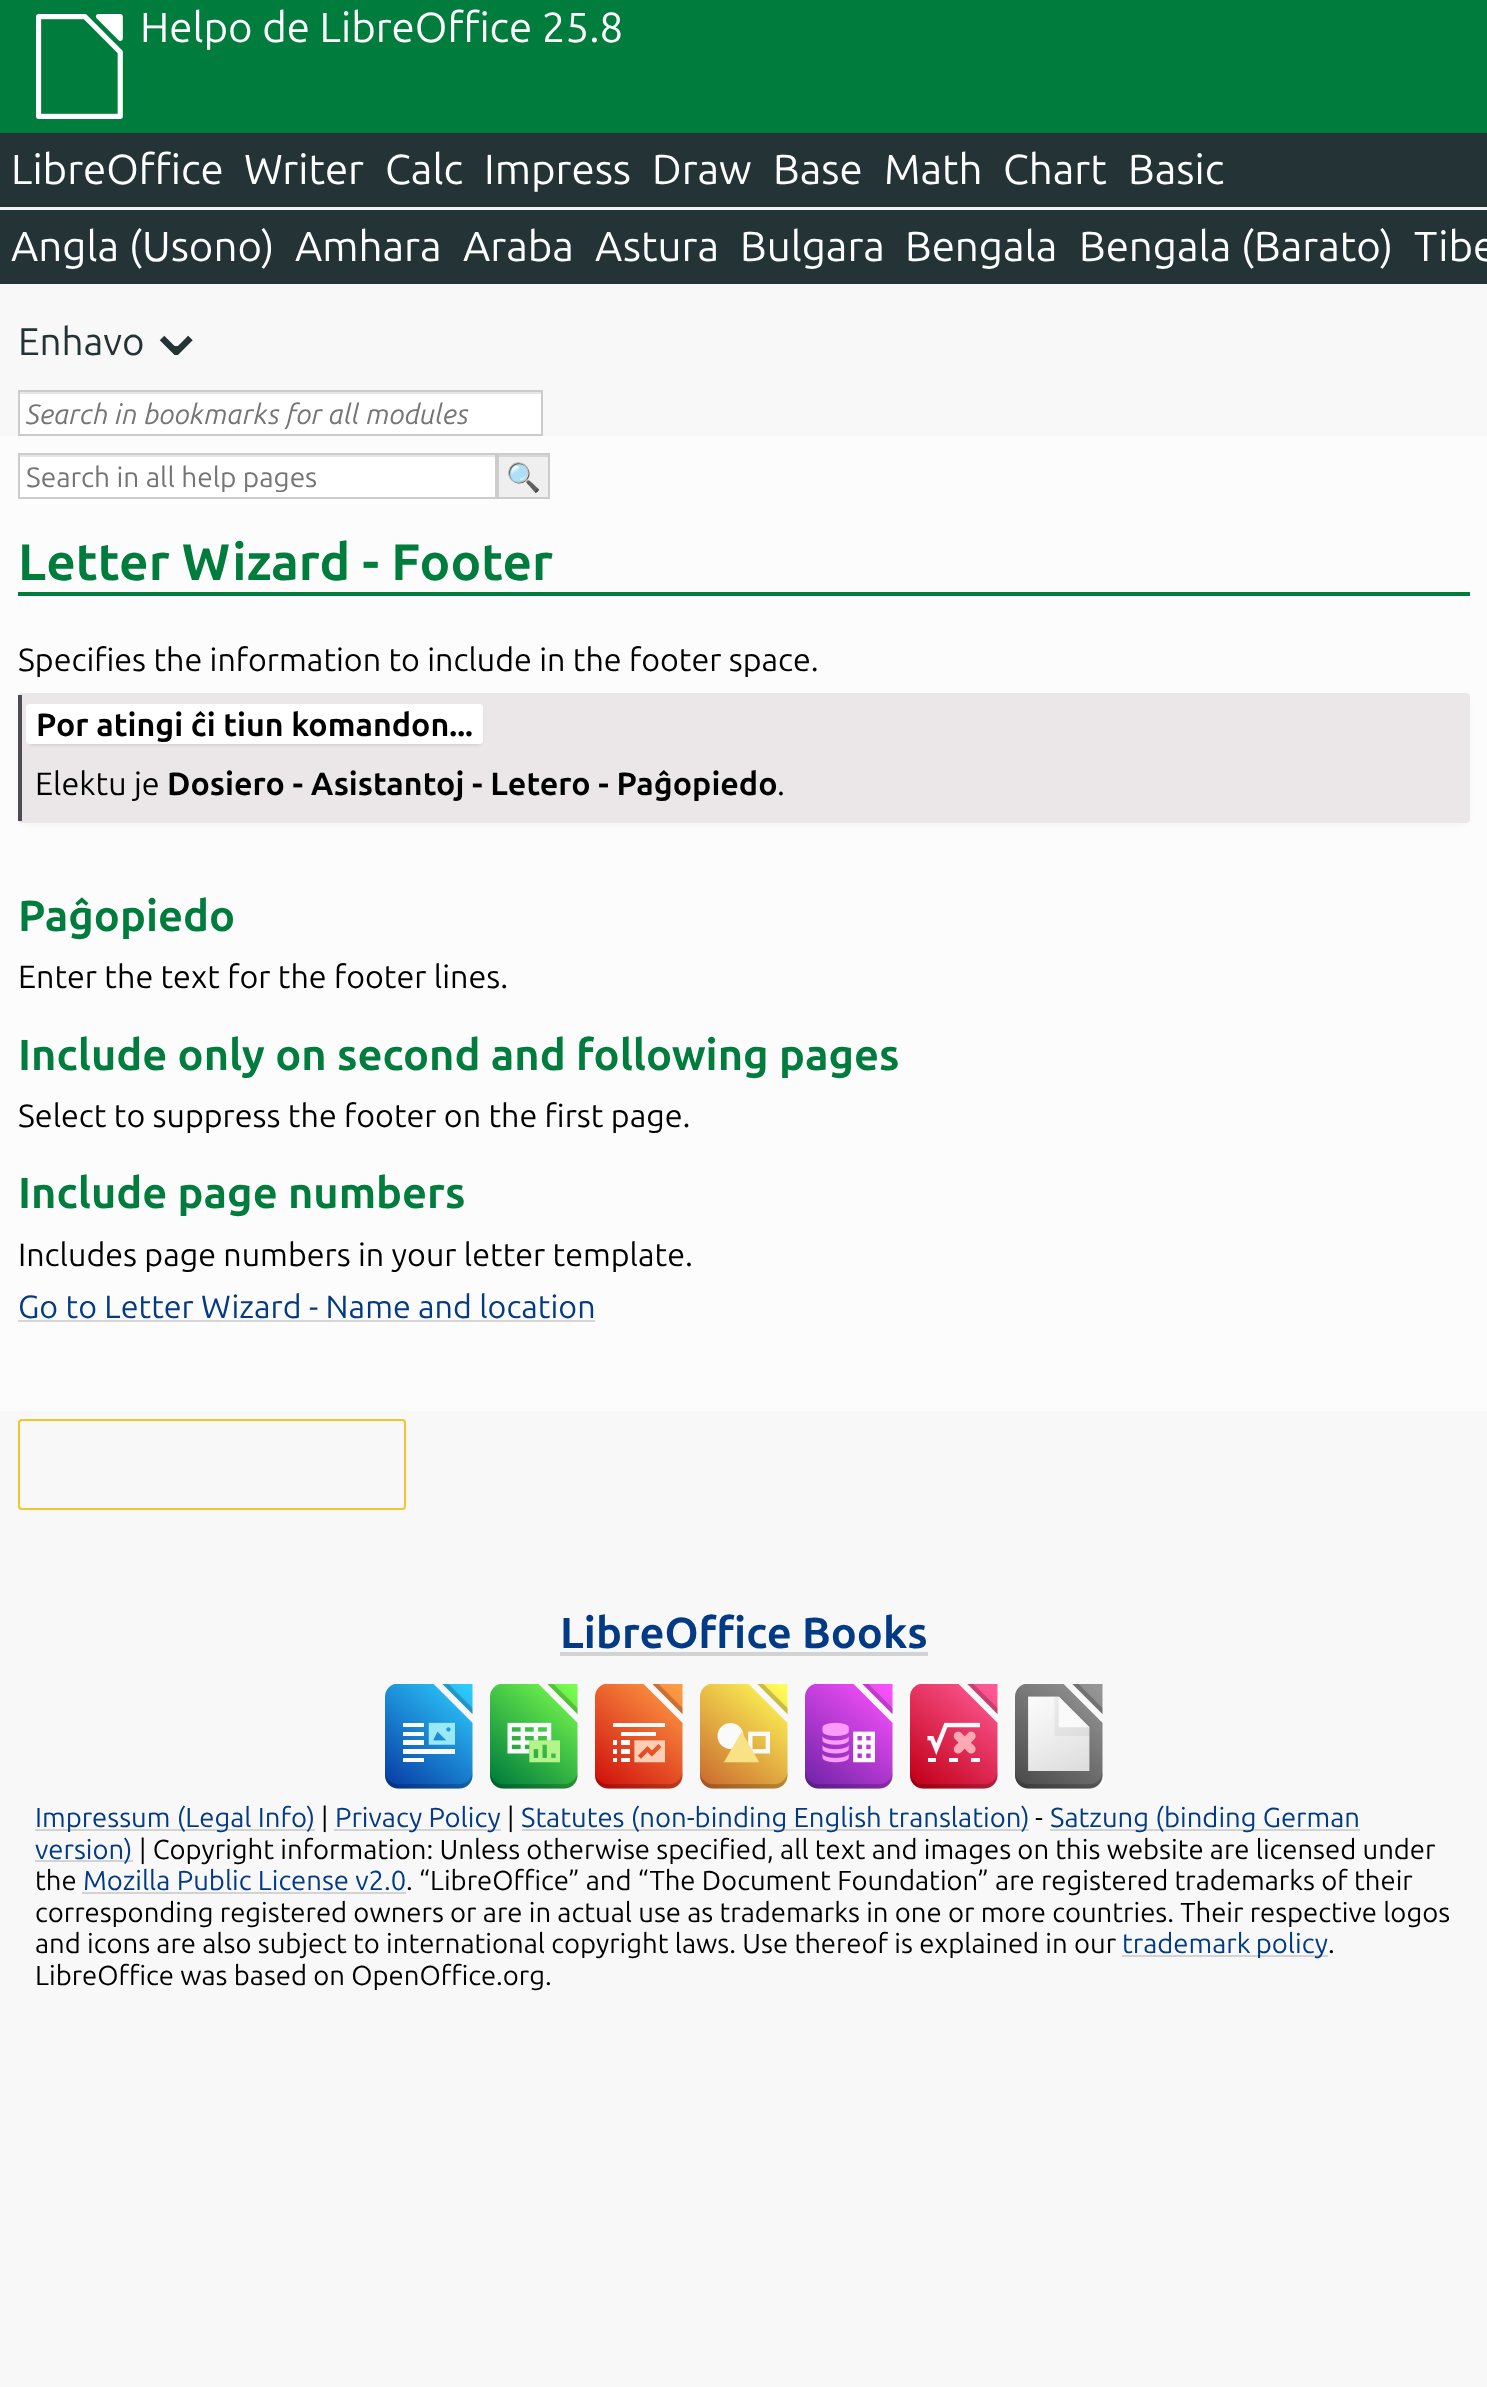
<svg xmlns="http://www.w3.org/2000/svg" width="1487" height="2387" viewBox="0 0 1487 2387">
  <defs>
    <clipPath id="clip1"><rect x="26" y="460" width="436" height="32"/></clipPath>
  </defs>
  <rect width="100%" height="100%" fill="rgb(247,248,247)"/>
  <rect x="0" y="0" width="1487" height="133" fill="rgb(0,124,60)"/>
  <image x="36" y="14" width="87" height="105" href="pic1.png"/>
  <text x="140" y="42" font-family="Ubuntu" font-size="42" fill="rgb(255,255,255)">Helpo de LibreOffice 25.8</text>
  <rect x="0" y="133" width="1487" height="74" fill="rgb(35,51,54)"/>
  <rect x="0" y="207" width="1487" height="3" fill="rgb(243,243,243)"/>
  <g font-family="Ubuntu" font-size="42" fill="rgb(255,255,255)">
    <text x="11" y="184">LibreOffice</text>
    <text x="244" y="184">Writer</text>
    <text x="385" y="184">Calc</text>
    <text x="484" y="184">Impress</text>
    <text x="652" y="184">Draw</text>
    <text x="773" y="184">Base</text>
    <text x="884" y="184">Math</text>
    <text x="1003" y="184">Chart</text>
    <text x="1128" y="184">Basic</text>
  </g>
  <rect x="0" y="210" width="1487" height="74" fill="rgb(35,51,54)"/>
  <g font-family="Ubuntu" font-size="42" fill="rgb(255,255,255)">
    <text x="11" y="261">Angla (Usono)</text>
    <text x="295" y="261">Amhara</text>
    <text x="463" y="261">Araba</text>
    <text x="595" y="261">Astura</text>
    <text x="740" y="261">Bulgara</text>
    <text x="905" y="261">Bengala</text>
    <text x="1079" y="261">Bengala (Barato)</text>
    <text x="1414" y="261">Tibe</text>
  </g>
  <text x="18" y="355" font-family="Ubuntu" font-size="38.5" fill="rgb(35,51,54)">Enhavo</text>
  <text x="144" y="355" font-family="DejaVu Sans" font-size="77" fill="rgb(35,51,54)">⌄</text>
  <rect x="20" y="394" width="521" height="40" fill="rgb(255,255,255)"/>
  <rect x="19" y="392" width="522" height="2" fill="rgb(230,230,230)"/>
  <rect x="19" y="391" width="523" height="44" fill="none" stroke="rgb(204,204,204)" stroke-width="2"/>
  <text x="26" y="424" font-family="Ubuntu" font-size="28" font-style="italic" fill="rgb(117,117,117)">Search in bookmarks for all modules</text>
  <rect x="0" y="436" width="1487" height="975" fill="rgb(252,252,252)"/>
  <rect x="20" y="457" width="475" height="40" fill="rgb(255,255,255)"/>
  <rect x="19" y="455" width="476" height="2" fill="rgb(230,230,230)"/>
  <rect x="19" y="454" width="477" height="44" fill="none" stroke="rgb(204,204,204)" stroke-width="2"/>
  <g clip-path="url(#clip1)">
    <text x="26" y="487" font-family="Ubuntu" font-size="28" fill="rgb(117,117,117)">Search in all help pages</text>
  </g>
  <rect x="499" y="457" width="49" height="40" fill="rgb(239,239,239)"/>
  <rect x="499" y="455" width="49" height="2" fill="rgb(215,215,215)"/>
  <rect x="498" y="454" width="51" height="44" fill="none" stroke="rgb(204,204,204)" stroke-width="2"/>
  <text x="506" y="487" font-family="Noto Color Emoji" font-size="28" fill="rgb(0,0,0)">🔍</text>
  <rect x="18" y="592" width="1452" height="4" fill="rgb(0,124,60)"/>
  <text x="18" y="580" font-family="Ubuntu" font-size="51.25" font-weight="bold" fill="rgb(0,124,60)">Letter Wizard - Footer</text>
  <text x="18" y="671" font-family="Ubuntu" font-size="32.2" fill="rgb(0,0,0)">Specifies the information to include in the footer space.</text>
  <rect x="23" y="702" width="1442" height="119" fill="rgba(0,0,0,0.1)" filter="blur(4.5px)"/>
  <rect x="18" y="693" width="1452" height="130" rx="4" fill="rgb(235,231,233)"/>
  <rect x="18" y="695" width="4" height="126" fill="rgb(78,75,85)"/>
  <rect x="30" y="711" width="450" height="33" fill="rgba(0,0,0,0.2)" filter="blur(2px)"/>
  <rect x="26" y="704" width="457" height="40" rx="4" fill="rgb(255,255,255)"/>
  <text x="36" y="736" font-family="Ubuntu" font-size="32.2" font-weight="bold" fill="rgb(0,0,0)">Por atingi ĉi tiun komandon...</text>
  <text x="35" y="795" font-family="Ubuntu" font-size="32.2" fill="rgb(0,0,0)">Elektu je</text>
  <text x="167" y="795" font-family="Ubuntu" font-size="32.2" font-weight="bold" fill="rgb(0,0,0)">Dosiero - Asistantoj - Letero - Paĝopiedo</text>
  <text x="777" y="795" font-family="Ubuntu" font-size="32.2" fill="rgb(0,0,0)">.</text>
  <text x="18" y="931" font-family="Ubuntu" font-size="43.4" font-weight="bold" fill="rgb(0,124,60)">Paĝopiedo</text>
  <text x="18" y="988" font-family="Ubuntu" font-size="32.2" fill="rgb(0,0,0)">Enter the text for the footer lines.</text>
  <text x="18" y="1070" font-family="Ubuntu" font-size="43.4" font-weight="bold" fill="rgb(0,124,60)">Include only on second and following pages</text>
  <text x="18" y="1127" font-family="Ubuntu" font-size="32.2" fill="rgb(0,0,0)">Select to suppress the footer on the first page.</text>
  <text x="18" y="1208" font-family="Ubuntu" font-size="43.4" font-weight="bold" fill="rgb(0,124,60)">Include page numbers</text>
  <text x="18" y="1266" font-family="Ubuntu" font-size="32.2" fill="rgb(0,0,0)">Includes page numbers in your letter template.</text>
  <text x="18" y="1318" font-family="Ubuntu" font-size="32.2" fill="rgb(2,58,134)">Go to Letter Wizard - Name and location</text>
  <rect x="18" y="1320" width="577" height="2" fill="rgb(214,214,214)"/>
  <rect x="19" y="1420" width="386" height="89" rx="3" fill="none" stroke="rgb(241,198,42)" stroke-width="2"/>
  <text x="560" y="1648" font-family="Ubuntu" font-size="43.4" font-weight="bold" fill="rgb(2,58,134)">LibreOffice Books</text>
  <rect x="560" y="1652" width="368" height="4" fill="rgb(210,211,210)"/>
  <image x="385" y="1684" width="88" height="105" href="pic2.png"/>
  <image x="490" y="1684" width="88" height="105" href="pic3.png"/>
  <image x="595" y="1684" width="88" height="105" href="pic4.png"/>
  <image x="700" y="1684" width="88" height="105" href="pic5.png"/>
  <image x="805" y="1684" width="88" height="105" href="pic6.png"/>
  <image x="910" y="1684" width="88" height="105" href="pic7.png"/>
  <image x="1015" y="1684" width="88" height="105" href="pic8.png"/>
  <rect x="35" y="1829" width="280" height="2" fill="rgb(210,211,210)"/>
  <text x="35" y="1827" font-family="Ubuntu" font-size="27.45" fill="rgb(2,58,134)">Impressum (Legal Info)</text>
  <text x="321" y="1827" font-family="Ubuntu" font-size="27.45" fill="rgb(0,0,0)">|</text>
  <rect x="334" y="1829" width="167" height="2" fill="rgb(210,211,210)"/>
  <text x="335" y="1827" font-family="Ubuntu" font-size="27.45" fill="rgb(2,58,134)">Privacy Policy</text>
  <text x="507" y="1827" font-family="Ubuntu" font-size="27.45" fill="rgb(0,0,0)">|</text>
  <rect x="522" y="1829" width="507" height="2" fill="rgb(210,211,210)"/>
  <text x="521" y="1827" font-family="Ubuntu" font-size="27.45" fill="rgb(2,58,134)">Statutes (non-binding English translation)</text>
  <text x="1035" y="1827" font-family="Ubuntu" font-size="27.45" fill="rgb(0,0,0)">-</text>
  <rect x="1050" y="1829" width="310" height="2" fill="rgb(210,211,210)"/>
  <text x="1050" y="1827" font-family="Ubuntu" font-size="27.45" fill="rgb(2,58,134)">Satzung (binding German</text>
  <rect x="35" y="1860" width="98" height="2" fill="rgb(210,211,210)"/>
  <text x="35" y="1859" font-family="Ubuntu" font-size="27.45" fill="rgb(2,58,134)">version)</text>
  <g font-family="Ubuntu" font-size="27.45" fill="rgb(0,0,0)">
    <text x="139" y="1859">| Copyright information: Unless otherwise specified, all text and images on this website are licensed under</text>
    <text x="35" y="1890">the</text>
  </g>
  <text x="83" y="1890" font-family="Ubuntu" font-size="27.45" fill="rgb(2,58,134)">Mozilla Public License v2.0</text>
  <rect x="82" y="1892" width="324" height="2" fill="rgb(210,211,210)"/>
  <g font-family="Ubuntu" font-size="27.45" fill="rgb(0,0,0)">
    <text x="406" y="1890">. “LibreOffice” and “The Document Foundation” are registered trademarks of their</text>
    <text>
      <tspan x="35" y="1922">corresponding registered owners or are in actual use as trademarks in one or more countries. Their respective logos</tspan>
      <tspan x="35" y="1953">and icons are also subject to international copyright laws. Use thereof is explained in our</tspan>
    </text>
  </g>
  <rect x="1122" y="1955" width="206" height="2" fill="rgb(210,211,210)"/>
  <text x="1122" y="1953" word-spacing="-1" font-family="Ubuntu" font-size="27.45" fill="rgb(2,58,134)">trademark policy</text>
  <g font-family="Ubuntu" font-size="27.45" fill="rgb(0,0,0)">
    <text x="1328" y="1953">.</text>
    <text x="35" y="1985">LibreOffice was based on OpenOffice.org.</text>
  </g>
</svg>
